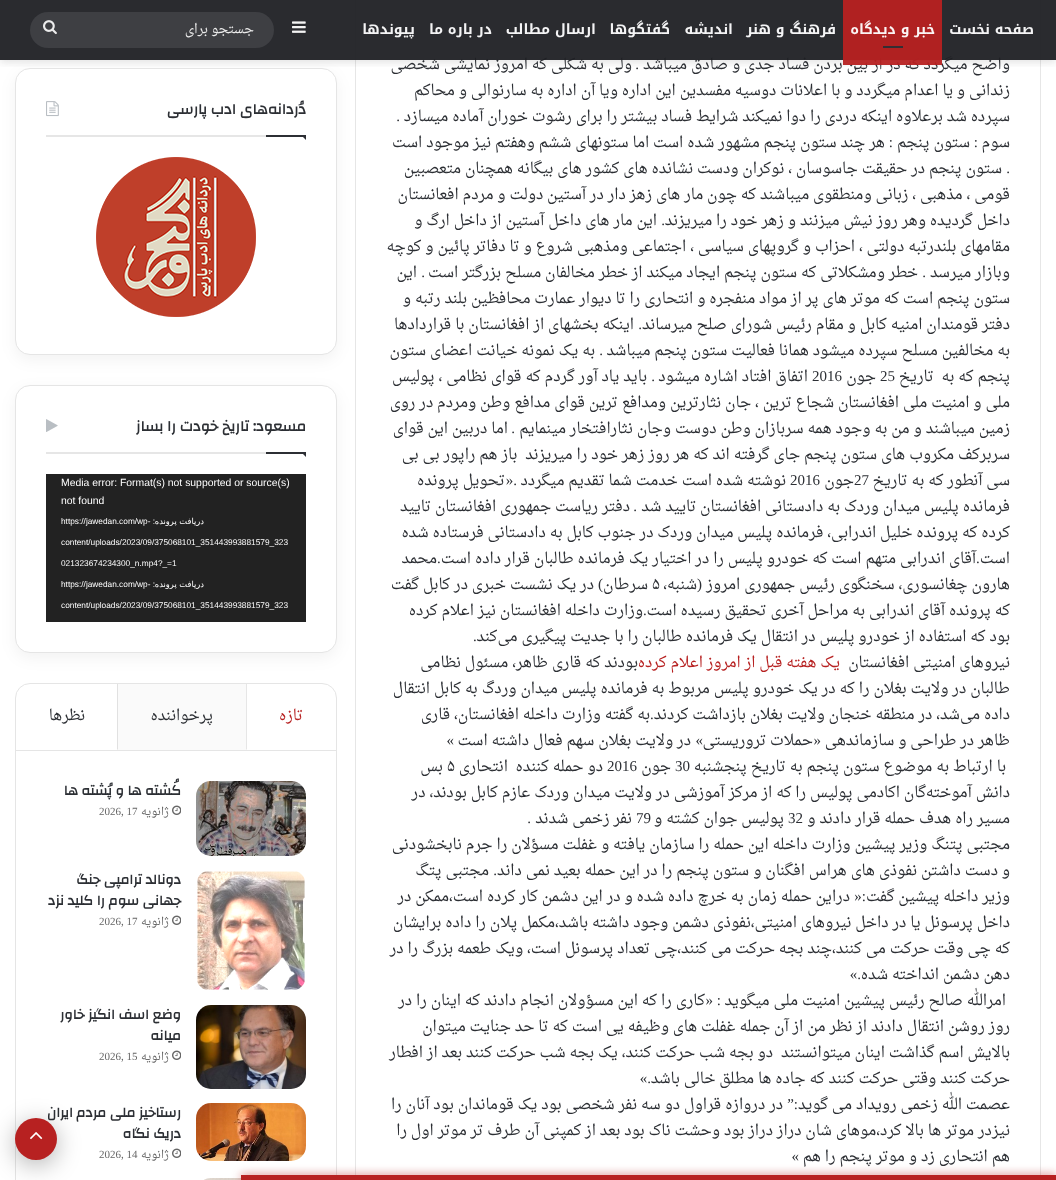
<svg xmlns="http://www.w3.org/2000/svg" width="1056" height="1180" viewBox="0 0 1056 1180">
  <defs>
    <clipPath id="clip1"><rect x="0" y="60" width="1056" height="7"/></clipPath>
  </defs>
  <rect width="100%" height="100%" fill="rgb(255,255,255)"/>
  <rect x="355.5" y="-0.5" width="685" height="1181" fill="none" stroke="rgb(230,230,230)"/>
  <rect x="15" y="73" width="322" height="287" rx="15" fill="rgba(0,0,0,0.05)" filter="blur(7.5px)"/>
  <rect x="15.5" y="68.5" width="321" height="286" rx="14.5" fill="rgb(255,255,255)" stroke="rgb(229,229,229)"/>
  <g clip-path="url(#clip1)">
    <rect x="0" y="2" width="1056" height="60" fill="rgba(99,99,99,0.2)" filter="blur(4px)"/>
  </g>
  <g font-family="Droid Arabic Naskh" font-size="15" direction="rtl" fill="rgb(44,47,52)">
    <text x="1010" y="69">واضح میگردد که در از بین بردن فساد جدی و صادق میباشد</text>
    <text x="632" y="69">ولی به شکلی که امروز نمایشی شخصی</text>
  </g>
  <rect x="0" y="0" width="1056" height="60" fill="rgba(31,32,36,0.95)"/>
  <text x="1034" y="34" font-family="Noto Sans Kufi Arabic" font-size="14" font-weight="bold" direction="rtl" fill="rgb(244,244,245)">صفحه نخست</text>
  <rect x="843" y="60" width="99" height="5" fill="rgba(183,33,33,0.95)"/>
  <rect x="843" y="0" width="99" height="60" fill="rgba(183,33,33,0.95)"/>
  <text x="935" y="34" font-family="Noto Sans Kufi Arabic" font-size="14" font-weight="bold" direction="rtl" fill="rgb(251,244,244)">خبر و دیدگاه</text>
  <rect x="883" y="46" width="20" height="2" fill="rgb(51,46,51)"/>
  <g font-family="Noto Sans Kufi Arabic" font-size="14" font-weight="bold" direction="rtl" fill="rgb(244,244,245)">
    <text x="836" y="34">فرهنگ و هنر</text>
    <text x="733" y="34">اندیشه</text>
    <text x="670" y="34">گفتگوها</text>
    <text x="596" y="34">ارسال مطالب</text>
    <text x="492" y="34">در باره ما</text>
    <text x="415" y="34">پیوندها</text>
  </g>
  <image x="292" y="21" width="14" height="12" href="pic1.png"/>
  <rect x="30" y="12" width="244" height="36" rx="18" fill="rgb(62,63,67)"/>
  <text x="254" y="33" font-family="Droid Arabic Naskh" font-size="13" direction="rtl" fill="rgb(236,236,236)">جستجو برای</text>
  <image x="43" y="20" width="14" height="15" href="pic2.png"/>
  <text x="639" y="69" font-family="Liberation Serif" font-size="15" direction="rtl" fill="rgb(44,47,52)">.</text>
  <g font-family="Droid Arabic Naskh" font-size="15" direction="rtl" fill="rgb(44,47,52)">
    <text>
      <tspan x="1010" y="95">زندانی و یا اعدام میگردد و با اعلانات دوسیه مفسدین این اداره ویا آن اداره به سارنوالی و محاکم</tspan>
      <tspan x="1010" y="121">سپرده شد برعلاوه اینکه دردی را دوا نمیکند شرایط فساد بیشتر را برای رشوت خوران آماده میسازد</tspan>
    </text>
  </g>
  <text x="400" y="121" font-family="Liberation Serif" font-size="15" direction="rtl" fill="rgb(44,47,52)">.</text>
  <text x="1010" y="147" font-family="Droid Arabic Naskh" font-size="15" direction="rtl" fill="rgb(44,47,52)">سوم</text>
  <text x="978" y="147" font-family="Liberation Serif" font-size="15" direction="rtl" fill="rgb(44,47,52)">:</text>
  <text x="970" y="147" font-family="Droid Arabic Naskh" font-size="15" direction="rtl" fill="rgb(44,47,52)">ستون پنجم</text>
  <text x="893" y="147" font-family="Liberation Serif" font-size="15" direction="rtl" fill="rgb(44,47,52)">:</text>
  <text x="885" y="147" font-family="Droid Arabic Naskh" font-size="15" direction="rtl" fill="rgb(44,47,52)">هر چند ستون پنجم مشهور شده است اما ستونهای ششم وهفتم نیز موجود است</text>
  <text x="1010" y="173" font-family="Liberation Serif" font-size="15" direction="rtl" fill="rgb(44,47,52)">.</text>
  <g font-family="Droid Arabic Naskh" font-size="15" direction="rtl" fill="rgb(44,47,52)">
    <text x="1002" y="173">ستون پنجم در حقیقت جاسوسان ، نوکران ودست نشانده های کشور های بیگانه همچنان متعصبین</text>
    <text>
      <tspan x="1010" y="199">قومی ، مذهبی ، زبانی ومنطقوی میباشند که چون مار های زهز دار در آستین دولت و مردم افعانستان</tspan>
      <tspan x="1010" y="225">داخل گردیده وهر روز نیش میزنند و زهر خود را میریزند</tspan>
    </text>
  </g>
  <text x="665" y="225" font-family="Liberation Serif" font-size="15" direction="rtl" fill="rgb(44,47,52)">.</text>
  <g font-family="Droid Arabic Naskh" font-size="15" direction="rtl" fill="rgb(44,47,52)">
    <text x="657" y="225">این مار های داخل آستین از داخل ارگ و</text>
    <text>
      <tspan x="1010" y="251">مقامهای بلندرتبه دولتی ، احزاب و گروپهای سیاسی ، اجتماعی ومذهبی شروع و تا دفاتر پائین و کوچه</tspan>
      <tspan x="1010" y="277">وبازار میرسد</tspan>
    </text>
  </g>
  <text x="926" y="277" font-family="Liberation Serif" font-size="15" direction="rtl" fill="rgb(44,47,52)">.</text>
  <text x="918" y="277" font-family="Droid Arabic Naskh" font-size="15" direction="rtl" fill="rgb(44,47,52)">خطر ومشکلاتی که ستون پنجم ایجاد میکند از خطر مخالفان مسلح بزرگتر است</text>
  <text x="425" y="277" font-family="Liberation Serif" font-size="15" direction="rtl" fill="rgb(44,47,52)">.</text>
  <g font-family="Droid Arabic Naskh" font-size="15" direction="rtl" fill="rgb(44,47,52)">
    <text x="417" y="277">این</text>
    <text>
      <tspan x="1010" y="303">ستون پنجم است که موتر های پر از مواد منفجره و انتحاری را تا دیوار عمارت محافظین بلند رتبه و</tspan>
      <tspan x="1010" y="329">دفتر قومندان امنیه کابل و مقام رئیس شورای صلح میرساند</tspan>
    </text>
  </g>
  <text x="642" y="329" font-family="Liberation Serif" font-size="15" direction="rtl" fill="rgb(44,47,52)">.</text>
  <g font-family="Droid Arabic Naskh" font-size="15" direction="rtl" fill="rgb(44,47,52)">
    <text x="634" y="329">اینکه بخشهای از افغانستان با قراردادها</text>
    <text x="1010" y="355">به مخالفین مسلح سپرده میشود همانا فعالیت ستون پنجم میباشد</text>
  </g>
  <text x="603" y="355" font-family="Liberation Serif" font-size="15" direction="rtl" fill="rgb(44,47,52)">.</text>
  <g font-family="Droid Arabic Naskh" font-size="15" direction="rtl" fill="rgb(44,47,52)">
    <text x="595" y="355">به یک نمونه خیانت اعضای ستون</text>
    <text x="1010" y="381" xml:space="preserve">پنجم که به  تاریخ</text>
  </g>
  <text x="880" y="381" font-family="Liberation Serif" font-size="15" fill="rgb(44,47,52)">25</text>
  <text x="876" y="381" font-family="Droid Arabic Naskh" font-size="15" direction="rtl" fill="rgb(44,47,52)">جون</text>
  <text x="812" y="381" font-family="Liberation Serif" font-size="15" fill="rgb(44,47,52)">2016</text>
  <text x="808" y="381" font-family="Droid Arabic Naskh" font-size="15" direction="rtl" fill="rgb(44,47,52)">اتفاق افتاد اشاره میشود</text>
  <text x="655" y="381" font-family="Liberation Serif" font-size="15" direction="rtl" fill="rgb(44,47,52)">.</text>
  <g font-family="Droid Arabic Naskh" font-size="15" direction="rtl" fill="rgb(44,47,52)">
    <text x="647" y="381">باید یاد آور گردم که قوای نظامی ، پولیس</text>
    <text>
      <tspan x="1010" y="407">ملی و امنیت ملی افغانستان شجاع ترین ، جان نثارترین ومدافع ترین قوای مدافع وطن ومردم در روی</tspan>
      <tspan x="1010" y="433">زمین میباشند و من به وجود همه سربازان وطن دوست وجان نثارافتخار مینمایم</tspan>
    </text>
  </g>
  <text x="515" y="433" font-family="Liberation Serif" font-size="15" direction="rtl" fill="rgb(44,47,52)">.</text>
  <g font-family="Droid Arabic Naskh" font-size="15" direction="rtl" fill="rgb(44,47,52)">
    <text x="508" y="433">اما دربین این قوای</text>
    <text xml:space="preserve"><tspan x="1010" y="459">سربرکف مکروب های ستون پنجم جای گرفته اند که هر روز زهر خود را میریزند  باز هم راپور بی بی</tspan><tspan x="1010" y="485">سی آنطور که به تاریخ</tspan></text>
  </g>
  <text x="854" y="485" font-family="Liberation Serif" font-size="15" fill="rgb(44,47,52)">27</text>
  <text x="854" y="485" font-family="Droid Arabic Naskh" font-size="15" direction="rtl" fill="rgb(44,47,52)">جون</text>
  <text x="790" y="485" font-family="Liberation Serif" font-size="15" fill="rgb(44,47,52)">2016</text>
  <text x="786" y="485" font-family="Droid Arabic Naskh" font-size="15" direction="rtl" fill="rgb(44,47,52)">نوشته شده است خدمت شما تقدیم میگردد</text>
  <text x="517" y="485" font-family="Liberation Serif" font-size="15" direction="rtl" fill="rgb(44,47,52)">.«</text>
  <g font-family="Droid Arabic Naskh" font-size="15" direction="rtl" fill="rgb(44,47,52)">
    <text x="505" y="485">تحویل پرونده</text>
    <text x="1010" y="511">فرمانده پلیس میدان وردک به دادستانی افغانستان تایید شد</text>
  </g>
  <text x="637" y="511" font-family="Liberation Serif" font-size="15" direction="rtl" fill="rgb(44,47,52)">.</text>
  <g font-family="Droid Arabic Naskh" font-size="15" direction="rtl" fill="rgb(44,47,52)">
    <text x="630" y="511">دفتر ریاست جمهوری افغانستان</text>
    <text x="431" y="511">تایید</text>
    <text>
      <tspan x="1010" y="537">کرده که پرونده خلیل اندرابی، فرمانده پلیس میدان وردک در جنوب کابل به دادستانی فرستاده شده</tspan>
      <tspan x="1010" y="563">است</tspan>
    </text>
  </g>
  <text x="976" y="563" font-family="Liberation Serif" font-size="15" fill="rgb(44,47,52)">.</text>
  <text x="976" y="563" font-family="Droid Arabic Naskh" font-size="15" direction="rtl" fill="rgb(44,47,52)">آقای اندرابی متهم است که خودرو پلیس را در اختیار یک فرمانده طالبان قرار داده است</text>
  <text x="437" y="563" font-family="Liberation Serif" font-size="15" fill="rgb(44,47,52)">.</text>
  <g font-family="Droid Arabic Naskh" font-size="15" direction="rtl" fill="rgb(44,47,52)">
    <text x="437" y="563">محمد</text>
    <text x="1010" y="589">هارون چغانسوری، سخنگوی رئیس جمهوری امروز</text>
  </g>
  <text x="702" y="589" font-family="Liberation Serif" font-size="15" direction="rtl" fill="rgb(44,47,52)">(</text>
  <text x="697" y="589" font-family="Droid Arabic Naskh" font-size="15" direction="rtl" fill="rgb(44,47,52)">شنبه،</text>
  <text x="652" y="589" font-family="Droid Arabic Naskh" font-size="15" fill="rgb(44,47,52)">۵</text>
  <text x="648" y="589" font-family="Droid Arabic Naskh" font-size="15" direction="rtl" fill="rgb(44,47,52)">سرطان</text>
  <text x="603" y="589" font-family="Liberation Serif" font-size="15" direction="rtl" fill="rgb(44,47,52)">)</text>
  <g font-family="Droid Arabic Naskh" font-size="15" direction="rtl" fill="rgb(44,47,52)">
    <text x="594" y="589">در یک نشست خبری در کابل گفت</text>
    <text x="1010" y="615">که پرونده آقای اندرابی به مراحل آخری تحقیق رسیده است</text>
  </g>
  <text x="643" y="615" font-family="Liberation Serif" font-size="15" fill="rgb(44,47,52)">.</text>
  <g font-family="Droid Arabic Naskh" font-size="15" direction="rtl" fill="rgb(44,47,52)">
    <text x="643" y="615">وزارت داخله افغانستان نیز اعلام کرده</text>
    <text x="1010" y="641">بود که استفاده از خودرو پلیس در انتقال یک فرمانده طالبان را با جدیت پیگیری می‌کند</text>
  </g>
  <text x="473" y="641" font-family="Liberation Serif" font-size="15" fill="rgb(44,47,52)">.</text>
  <text x="1010" y="667" font-family="Droid Arabic Naskh" font-size="15" direction="rtl" fill="rgb(44,47,52)">نیروهای امنیتی افغانستان</text>
  <text x="840" y="667" font-family="Droid Arabic Naskh" font-size="15" direction="rtl" fill="rgb(183,33,33)">یک هفته قبل از امروز اعلام کرده</text>
  <g font-family="Droid Arabic Naskh" font-size="15" direction="rtl" fill="rgb(44,47,52)">
    <text x="638" y="667">بودند که قاری ظاهر، مسئول نظامی</text>
    <text>
      <tspan x="1010" y="693">طالبان در ولایت بغلان را که در یک خودرو پلیس مربوط به فرمانده پلیس میدان وردگ به کابل انتقال</tspan>
      <tspan x="1010" y="719">داده می‌شد، در منطقه خنجان ولایت بغلان بازداشت کردند</tspan>
    </text>
  </g>
  <text x="650" y="719" font-family="Liberation Serif" font-size="15" fill="rgb(44,47,52)">.</text>
  <g font-family="Droid Arabic Naskh" font-size="15" direction="rtl" fill="rgb(44,47,52)">
    <text x="650" y="719">به گفته وزارت داخله افغانستان، قاری</text>
    <text x="1010" y="745">ظاهر در طراحی و سازماندهی</text>
  </g>
  <text x="821" y="745" font-family="Liberation Serif" font-size="15" direction="rtl" fill="rgb(44,47,52)">«</text>
  <text x="813" y="745" font-family="Droid Arabic Naskh" font-size="15" direction="rtl" fill="rgb(44,47,52)">حملات تروریستی</text>
  <text x="703" y="745" font-family="Liberation Serif" font-size="15" direction="rtl" fill="rgb(44,47,52)">»</text>
  <text x="691" y="745" font-family="Droid Arabic Naskh" font-size="15" direction="rtl" fill="rgb(44,47,52)">در ولایت بغلان سهم فعال داشته است</text>
  <text x="454" y="745" font-family="Liberation Serif" font-size="15" direction="rtl" fill="rgb(44,47,52)">»</text>
  <text x="1006" y="771" font-family="Droid Arabic Naskh" font-size="15" direction="rtl" fill="rgb(44,47,52)">با ارتباط به موضوع ستون پنجم به تاریخ پنجشنبه</text>
  <text x="675" y="771" font-family="Liberation Serif" font-size="15" fill="rgb(44,47,52)">30</text>
  <text x="671" y="771" font-family="Droid Arabic Naskh" font-size="15" direction="rtl" fill="rgb(44,47,52)">جون</text>
  <text x="607" y="771" font-family="Liberation Serif" font-size="15" fill="rgb(44,47,52)">2016</text>
  <text x="603" y="771" font-family="Droid Arabic Naskh" font-size="15" direction="rtl" fill="rgb(44,47,52)" xml:space="preserve">دو حمله کننده  انتحاری</text>
  <text x="447" y="771" font-family="Droid Arabic Naskh" font-size="15" fill="rgb(44,47,52)">۵</text>
  <g font-family="Droid Arabic Naskh" font-size="15" direction="rtl" fill="rgb(44,47,52)">
    <text x="443" y="771">بس</text>
    <text x="1010" y="797">دانش آموخته</text>
    <text x="926" y="797">گان اکادمی پولیس را که از مرکز آموزشی در ولایت میدان</text>
    <text x="569" y="797">وردک عازم کابل بودند، در</text>
    <text x="1010" y="823">مسیر راه هدف حمله قرار دادند و</text>
  </g>
  <text x="788" y="823" font-family="Liberation Serif" font-size="15" fill="rgb(44,47,52)">32</text>
  <text x="784" y="823" font-family="Droid Arabic Naskh" font-size="15" direction="rtl" fill="rgb(44,47,52)">پولیس جوان کشته و</text>
  <text x="636" y="823" font-family="Liberation Serif" font-size="15" fill="rgb(44,47,52)">79</text>
  <text x="632" y="823" font-family="Droid Arabic Naskh" font-size="15" direction="rtl" fill="rgb(44,47,52)">نفر زخمی شدند</text>
  <text x="531" y="823" font-family="Liberation Serif" font-size="15" direction="rtl" fill="rgb(44,47,52)">.</text>
  <g font-family="Droid Arabic Naskh" font-size="15" direction="rtl" fill="rgb(44,47,52)">
    <text>
      <tspan x="1010" y="849">مجتبی پتنگ وزیر پیشین وزارت داخله این حمله را سازمان یافته و غفلت مسؤلان را جرم نابخشودنی</tspan>
      <tspan x="1010" y="875">و</tspan>
    </text>
    <text x="998" y="875">دست داشتن نفوذی های هراس افگنان و ستون پنجم را در این حمله بعید نمی داند</text>
  </g>
  <text x="497" y="875" font-family="Liberation Serif" font-size="15" direction="rtl" fill="rgb(44,47,52)">.</text>
  <g font-family="Droid Arabic Naskh" font-size="15" direction="rtl" fill="rgb(44,47,52)">
    <text x="489" y="875">مجتبی پتگ</text>
    <text x="1010" y="901">وزیر داخله پیشین گفت</text>
  </g>
  <text x="866" y="901" font-family="Liberation Serif" font-size="15" direction="rtl" fill="rgb(44,47,52)">:«</text>
  <g font-family="Droid Arabic Naskh" font-size="15" direction="rtl" fill="rgb(44,47,52)">
    <text x="850" y="901">دراین حمله زمان به خرچ داده شده و در این دشمن کار کرده است،ممکن در</text>
    <text>
      <tspan x="1010" y="927">داخل پرسونل یا در داخل نیروهای امنیتی،نفوذی دشمن وجود داشته باشد،مکمل پلان را داده برایشان</tspan>
      <tspan x="1010" y="953">که چی وقت حرکت می کنند،چند بجه حرکت می کنند،چی تعداد پرسونل است، ویک طعمه بزرگ را در</tspan>
      <tspan x="1010" y="979">دهن دشمن انداخته شده</tspan>
    </text>
  </g>
  <text x="861" y="979" font-family="Liberation Serif" font-size="15" direction="rtl" fill="rgb(44,47,52)">.»</text>
  <text x="1006" y="1005" font-family="Droid Arabic Naskh" font-size="15" direction="rtl" fill="rgb(44,47,52)">امرالله صالح رئیس پیشین امنیت ملی میگوید</text>
  <g font-family="Liberation Serif" font-size="15" direction="rtl" fill="rgb(44,47,52)">
    <text x="721" y="1005">:</text>
    <text x="713" y="1005">«</text>
  </g>
  <g font-family="Droid Arabic Naskh" font-size="15" direction="rtl" fill="rgb(44,47,52)">
    <text x="705" y="1005">کاری را که این مسؤولان انجام دادند که اینان را در</text>
    <text>
      <tspan x="1010" y="1031">روز روشن انتقال دادند از نظر من از آن جمله غفلت های وظیفه یی است که تا حد جنایت میتوان</tspan>
      <tspan x="1010" y="1057">بالایش اسم گذاشت اینان میتوانستند</tspan>
    </text>
    <text x="773" y="1057">دو بجه شب حرکت کنند، یک بجه شب حرکت کنند بعد از افطار</text>
    <text x="1010" y="1083">حرکت کنند وقتی حرکت کنند که جاده ها مطلق خالی باشد</text>
  </g>
  <text x="651" y="1083" font-family="Liberation Serif" font-size="15" direction="rtl" fill="rgb(44,47,52)">.»</text>
  <text x="1010" y="1109" font-family="Droid Arabic Naskh" font-size="15" direction="rtl" fill="rgb(44,47,52)">عصمت الله زخمی رویداد می گوید</text>
  <text x="798" y="1109" font-family="Liberation Serif" font-size="15" direction="rtl" fill="rgb(44,47,52)">:”</text>
  <g font-family="Droid Arabic Naskh" font-size="15" direction="rtl" fill="rgb(44,47,52)">
    <text x="783" y="1109">در دروازه قراول دو سه نفر شخصی بود یک قوماندان بود آنان را</text>
    <text x="1010" y="1135">نیزدر موتر ها بالا کرد،موهای شان دراز دراز بود وحشت ناک بود بعد از کمپنی آن طرف تر موتر اول</text>
    <text x="407" y="1135">را</text>
    <text x="1010" y="1161">هم انتحاری زد و موتر پنجم را هم</text>
  </g>
  <text x="799" y="1161" font-family="Liberation Serif" font-size="15" direction="rtl" fill="rgb(44,47,52)">»</text>
  <rect x="46" y="135" width="220" height="2" fill="rgb(230,230,230)"/>
  <text x="306" y="114" font-family="Changa" font-size="15" font-weight="bold" direction="rtl" fill="rgb(44,47,52)">دُردانه‌های ادب پارسی</text>
  <image x="46" y="101" width="13" height="16" href="pic3.png"/>
  <path d="M301 135H306V140Z" fill="rgb(44,47,52)"/>
  <rect x="266" y="135" width="40" height="2" fill="rgb(44,47,52)"/>
  <image x="96" y="157" width="160" height="160" href="pic4.png"/>
  <rect x="15" y="390" width="322" height="268" rx="15" fill="rgba(0,0,0,0.05)" filter="blur(7.5px)"/>
  <rect x="15.5" y="385.5" width="321" height="267" rx="14.5" fill="rgb(255,255,255)" stroke="rgb(229,229,229)"/>
  <rect x="46" y="452" width="220" height="2" fill="rgb(230,230,230)"/>
  <text x="306" y="431" font-family="Changa" font-size="15" font-weight="bold" direction="rtl" fill="rgb(44,47,52)">مسعود: تاریخ خودت را بساز</text>
  <image x="46" y="419" width="12" height="13" href="pic5.png"/>
  <path d="M301 452H306V457Z" fill="rgb(44,47,52)"/>
  <rect x="266" y="452" width="40" height="2" fill="rgb(44,47,52)"/>
  <rect x="46" y="474" width="260" height="148" fill="rgb(34,34,34)"/>
  <g font-family="Liberation Sans" font-size="10.4" fill="rgb(255,255,255)">
    <text>
      <tspan x="61" y="486">Media error: Format(s) not supported or source(s)</tspan>
      <tspan x="61" y="504">not found</tspan>
    </text>
  </g>
  <text x="204" y="524" font-family="DejaVu Sans" font-size="8.3" direction="rtl" fill="rgb(255,255,255)">دریافت پرونده</text>
  <text x="155" y="524" font-family="Liberation Sans" font-size="8.3" direction="rtl" fill="rgb(255,255,255)">:</text>
  <g font-family="Liberation Sans" font-size="8.3" fill="rgb(255,255,255)">
    <text x="61" y="524">https://jawedan.com/wp-</text>
    <text x="61" y="545">content/uploads/2023/09/375068101_351443993881579_323</text>
    <text x="61" y="566">021323674234300_n.mp4?_=1</text>
  </g>
  <text x="204" y="587" font-family="DejaVu Sans" font-size="8.3" direction="rtl" fill="rgb(255,255,255)">دریافت پرونده</text>
  <text x="155" y="587" font-family="Liberation Sans" font-size="8.3" direction="rtl" fill="rgb(255,255,255)">:</text>
  <g font-family="Liberation Sans" font-size="8.3" fill="rgb(255,255,255)">
    <text x="61" y="587">https://jawedan.com/wp-</text>
    <text x="61" y="608">content/uploads/2023/09/375068101_351443993881579_323</text>
  </g>
  <rect x="15.5" y="683.5" width="321" height="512" rx="14.5" fill="none" stroke="rgb(229,229,229)"/>
  <rect x="16" y="750" width="320" height="1" fill="rgb(229,229,229)"/>
  <path d="M246 684H247V749L246 750Z" fill="rgb(230,230,230)"/>
  <text x="303" y="720" font-family="Droid Arabic Naskh" font-size="15" direction="rtl" fill="rgb(183,33,33)">تازه</text>
  <rect x="117" y="684" width="129" height="66" fill="rgb(250,250,250)"/>
  <path d="M117 750V684H118V749Z" fill="rgb(225,225,225)"/>
  <g font-family="Droid Arabic Naskh" font-size="15" direction="rtl" fill="rgb(44,47,52)">
    <text x="213" y="720">پرخواننده</text>
    <text x="85" y="720">نظرها</text>
  </g>
  <image x="196" y="781" width="110" height="75" href="pic6.png"/>
  <text x="181" y="795" font-family="Changa" font-size="14" font-weight="bold" direction="rtl" fill="rgb(44,47,52)">کُشته ها و پُشته ها</text>
  <image x="172" y="805" width="9" height="10" href="pic7.png"/>
  <text x="169" y="815" font-family="Droid Arabic Naskh" font-size="11" direction="rtl" fill="rgb(102,102,102)">ژانویه</text>
  <text x="99" y="815" font-family="Liberation Serif" font-size="11" fill="rgb(102,102,102)">2026, 17</text>
  <image x="197" y="871" width="108" height="119" href="pic8.png"/>
  <g font-family="Changa" font-size="14" font-weight="bold" direction="rtl" fill="rgb(44,47,52)">
    <text>
      <tspan x="181" y="884">دونالد ترامپی جنگ</tspan>
      <tspan x="181" y="905">جهانی سوم را کلید نزد</tspan>
    </text>
  </g>
  <image x="172" y="915" width="9" height="10" href="pic7.png"/>
  <text x="169" y="925" font-family="Droid Arabic Naskh" font-size="11" direction="rtl" fill="rgb(102,102,102)">ژانویه</text>
  <text x="99" y="925" font-family="Liberation Serif" font-size="11" fill="rgb(102,102,102)">2026, 17</text>
  <image x="196" y="1005" width="110" height="84" href="pic9.png"/>
  <g font-family="Changa" font-size="14" font-weight="bold" direction="rtl" fill="rgb(44,47,52)">
    <text>
      <tspan x="181" y="1019">وضع اسف انگیز خاور</tspan>
      <tspan x="181" y="1040">میانه</tspan>
    </text>
  </g>
  <image x="172" y="1050" width="9" height="10" href="pic7.png"/>
  <text x="169" y="1060" font-family="Droid Arabic Naskh" font-size="11" direction="rtl" fill="rgb(102,102,102)">ژانویه</text>
  <text x="99" y="1060" font-family="Liberation Serif" font-size="11" fill="rgb(102,102,102)">2026, 15</text>
  <image x="196" y="1103" width="110" height="58" href="pic10.png"/>
  <g font-family="Changa" font-size="14" font-weight="bold" direction="rtl" fill="rgb(44,47,52)">
    <text>
      <tspan x="181" y="1117">رستاخیز ملی مردم ایران</tspan>
      <tspan x="181" y="1138">دریک نگاه</tspan>
    </text>
  </g>
  <image x="172" y="1148" width="9" height="10" href="pic7.png"/>
  <text x="169" y="1158" font-family="Droid Arabic Naskh" font-size="11" direction="rtl" fill="rgb(102,102,102)">ژانویه</text>
  <text x="99" y="1158" font-family="Liberation Serif" font-size="11" fill="rgb(102,102,102)">2026, 14</text>
  <image x="204" y="1178" width="37" height="2" href="pic11.png"/>
  <rect x="15" y="1123" width="42" height="42" rx="21" fill="rgba(0,0,0,0.3)" filter="blur(12.5px)"/>
  <circle cx="36" cy="1139" r="21" fill="rgb(183,33,33)"/>
  <image x="30" y="1132" width="13" height="8" href="pic12.png"/>
  <rect x="241" y="1175" width="815" height="5" fill="rgba(183,33,33,0.7)" filter="blur(5px)"/>
  <rect x="241" y="1175" width="815" height="5" fill="rgb(183,33,33)"/>
</svg>
